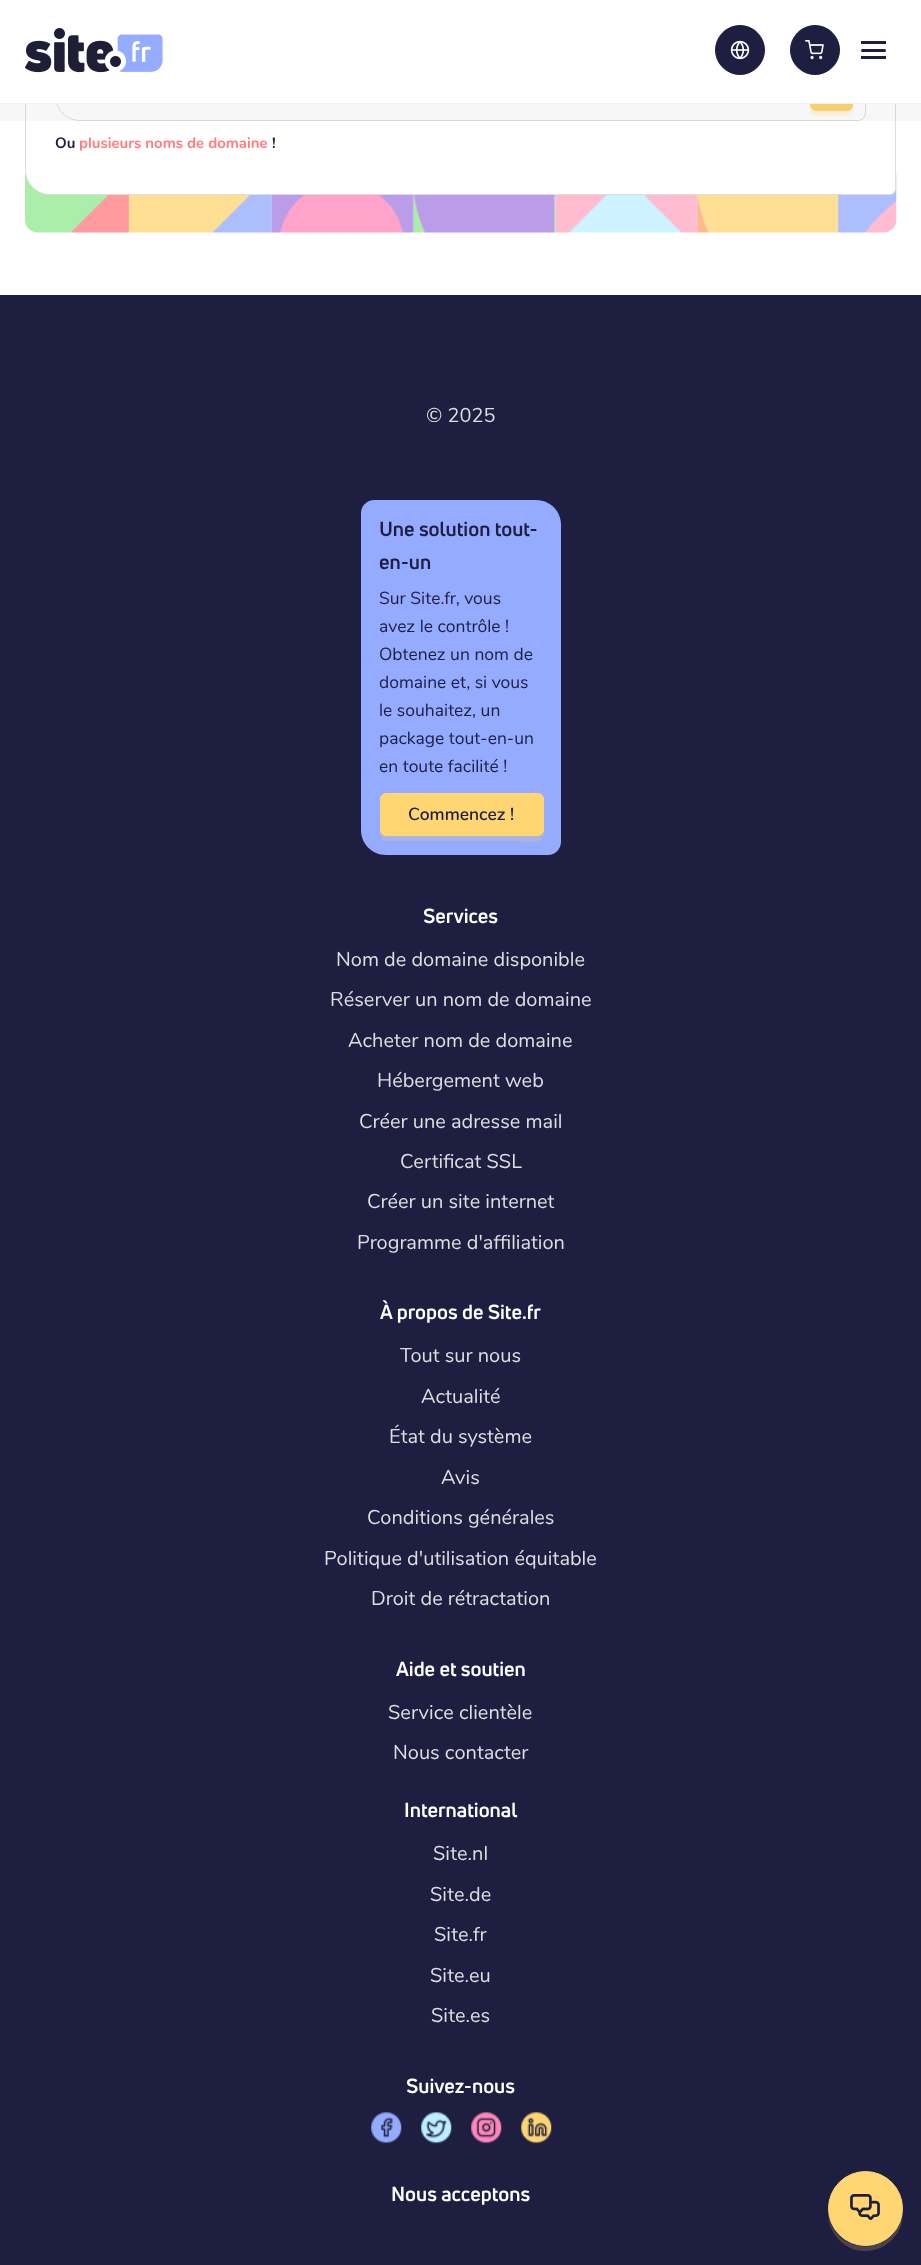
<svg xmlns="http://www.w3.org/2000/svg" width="921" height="2265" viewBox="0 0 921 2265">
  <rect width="100%" height="100%" fill="rgb(255,255,255)"/>
  <image x="25" y="173" width="872" height="60" href="pic4.png"/>
  <path d="M31-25.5H871C884.5-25.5 895.5-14.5 895.5-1V189C895.5 192 893 194.5 890 194.5H50C36.5 194.5 25.5 183.5 25.5 170V-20C25.5-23 28-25.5 31-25.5Z" fill="rgb(255,255,255)" stroke="rgb(222,222,222)"/>
  <path d="M63 59.5H841C854.5 59.5 865.5 70.5 865.5 84V113C865.5 117 862 120.5 858 120.5H80C66.5 120.5 55.5 109.5 55.5 96V67C55.5 63 59 59.5 63 59.5Z" fill="none" stroke="rgb(222,222,222)"/>
  <path d="M810 105C810 115 811 116 821 116H832C855 116 853 119 853 95V85C853 83 853 80 852 78V105C852 108 850 111 846 111H816C813 111 810 108 810 105Z" fill="rgb(255,247,227)"/>
  <rect x="810.5" y="69.5" width="42" height="41" rx="5.5" fill="rgb(255,214,114)" stroke="rgb(255,214,114)"/>
  <rect x="0" y="104" width="921" height="17" fill="rgba(0,0,0,0.03)"/>
  <rect x="25" y="0" width="871" height="103" fill="rgb(255,255,255)"/>
  <rect x="0" y="103" width="921" height="1" fill="rgb(242,242,242)"/>
  <circle cx="740" cy="50" r="24.5" fill="rgb(30,30,65)" stroke="rgb(30,30,65)"/>
  <image x="730" y="40" width="20" height="20" href="pic1.png"/>
  <circle cx="815" cy="50" r="24.5" fill="rgb(30,30,65)" stroke="rgb(30,30,65)"/>
  <image x="805" y="40" width="19" height="20" href="pic2.png"/>
  <image x="25" y="28" width="138" height="45" href="pic3.png"/>
  <rect x="861" y="49" width="25" height="3" rx="1.5" fill="rgb(30,30,65)"/>
  <rect x="861" y="41" width="25" height="3" fill="rgb(30,30,65)"/>
  <rect x="861" y="56" width="25" height="3" fill="rgb(30,30,65)"/>
  <text x="55" y="148" font-family="Nunito" font-size="15" font-weight="bold" fill="rgb(30,30,65)">Ou</text>
  <text x="79" y="148" font-family="Nunito" font-size="15" font-weight="bold" fill="rgb(255,125,129)">plusieurs noms de domaine</text>
  <text x="272" y="148" font-family="Nunito" font-size="15" font-weight="bold" fill="rgb(30,30,65)">!</text>
  <rect x="0" y="295" width="921" height="1970" fill="rgb(30,30,65)"/>
  <text x="426" y="422" font-family="Nunito" font-size="20" fill="rgb(222,222,222)">© 2025</text>
  <path d="M374 500H536C550 500 561 511 561 525V842C561 849 555 855 548 855H386C372 855 361 844 361 830V513C361 506 367 500 374 500Z" fill="rgb(148,171,255)"/>
  <g font-family="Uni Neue" font-size="20" font-weight="bold" fill="rgb(30,30,65)">
    <text>
      <tspan x="379" y="536">Une solution tout-</tspan>
      <tspan x="379" y="569">en-un</tspan>
    </text>
  </g>
  <g font-family="Nunito" font-size="17.5" fill="rgb(30,30,65)">
    <text>
      <tspan x="379" y="604">Sur Site.fr, vous</tspan>
      <tspan x="379" y="632">avez le contrôle !</tspan>
      <tspan x="379" y="660">Obtenez un nom de</tspan>
      <tspan x="379" y="688">domaine et, si vous</tspan>
      <tspan x="379" y="716">le souhaitez, un</tspan>
      <tspan x="379" y="744">package tout-en-un</tspan>
      <tspan x="379" y="772">en toute facilité !</tspan>
    </text>
  </g>
  <path d="M380 830C380 834 380 841 386 841H513C521 841 542 845 544 836V802V830C544 833 541 836 538 836H386C383 836 380 833 380 830Z" fill="rgb(169,180,227)"/>
  <rect x="380.5" y="793.5" width="163" height="42" rx="5.5" fill="rgb(255,214,114)" stroke="rgb(255,214,114)"/>
  <text x="408" y="820" font-family="Nunito" font-size="17.5" font-weight="600" fill="rgb(30,30,65)">Commencez !</text>
  <text x="423" y="923" font-family="Uni Neue" font-size="20" font-weight="bold" fill="rgb(255,255,255)">Services</text>
  <g font-family="Nunito" font-size="20" fill="rgb(222,222,222)">
    <text x="336" y="966">Nom de domaine disponible</text>
    <text x="330" y="1006">Réserver un nom de domaine</text>
    <text x="348" y="1047">Acheter nom de domaine</text>
    <text x="377" y="1087">Hébergement web</text>
    <text x="359" y="1128">Créer une adresse mail</text>
    <text x="400" y="1168">Certificat SSL</text>
    <text x="367" y="1208">Créer un site internet</text>
    <text x="357" y="1249">Programme d'affiliation</text>
  </g>
  <text x="380" y="1319" font-family="Uni Neue" font-size="20" font-weight="bold" fill="rgb(255,255,255)">À propos de Site.fr</text>
  <g font-family="Nunito" font-size="20" fill="rgb(222,222,222)">
    <text x="400" y="1362">Tout sur nous</text>
    <text x="421" y="1403">Actualité</text>
    <text x="389" y="1443">État du système</text>
    <text x="441" y="1484">Avis</text>
    <text x="367" y="1524">Conditions générales</text>
    <text x="324" y="1565">Politique d'utilisation équitable</text>
    <text x="371" y="1605">Droit de rétractation</text>
  </g>
  <text x="396" y="1676" font-family="Uni Neue" font-size="20" font-weight="bold" fill="rgb(255,255,255)">Aide et soutien</text>
  <g font-family="Nunito" font-size="20" fill="rgb(222,222,222)">
    <text x="388" y="1719">Service clientèle</text>
    <text x="393" y="1759">Nous contacter</text>
  </g>
  <text x="404" y="1817" font-family="Uni Neue" font-size="20" font-weight="bold" fill="rgb(255,255,255)">International</text>
  <g font-family="Nunito" font-size="20" fill="rgb(222,222,222)">
    <text x="433" y="1860">Site.nl</text>
    <text x="430" y="1901">Site.</text>
    <text x="469" y="1901">de</text>
    <text x="434" y="1941">Site.</text>
    <text x="473" y="1941">fr</text>
    <text x="430" y="1982">Site.</text>
    <text x="469" y="1982">eu</text>
    <text x="431" y="2022">Site.</text>
    <text x="470" y="2022">es</text>
  </g>
  <text x="406" y="2093" font-family="Uni Neue" font-size="20" font-weight="bold" fill="rgb(255,255,255)">Suivez-nous</text>
  <image x="371" y="2112" width="31" height="32" href="pic5.png"/>
  <image x="421" y="2112" width="31" height="32" href="pic6.png"/>
  <image x="471" y="2112" width="31" height="32" href="pic7.png"/>
  <image x="521" y="2112" width="31" height="32" href="pic8.png"/>
  <text x="391" y="2201" font-family="Uni Neue" font-size="20" font-weight="bold" fill="rgb(255,255,255)">Nous acceptons</text>
  <path d="M828 2215C828 2222 831 2229 835 2235C858 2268 909 2246 902 2207C903 2215 901 2223 896 2230C877 2258 834 2248 828 2215Z" fill="rgb(75,67,75)"/>
  <circle cx="865.5" cy="2208.5" r="37" fill="rgb(255,214,114)" stroke="rgb(255,214,114)"/>
  <image x="850" y="2194" width="30" height="26" href="pic9.png"/>
</svg>
